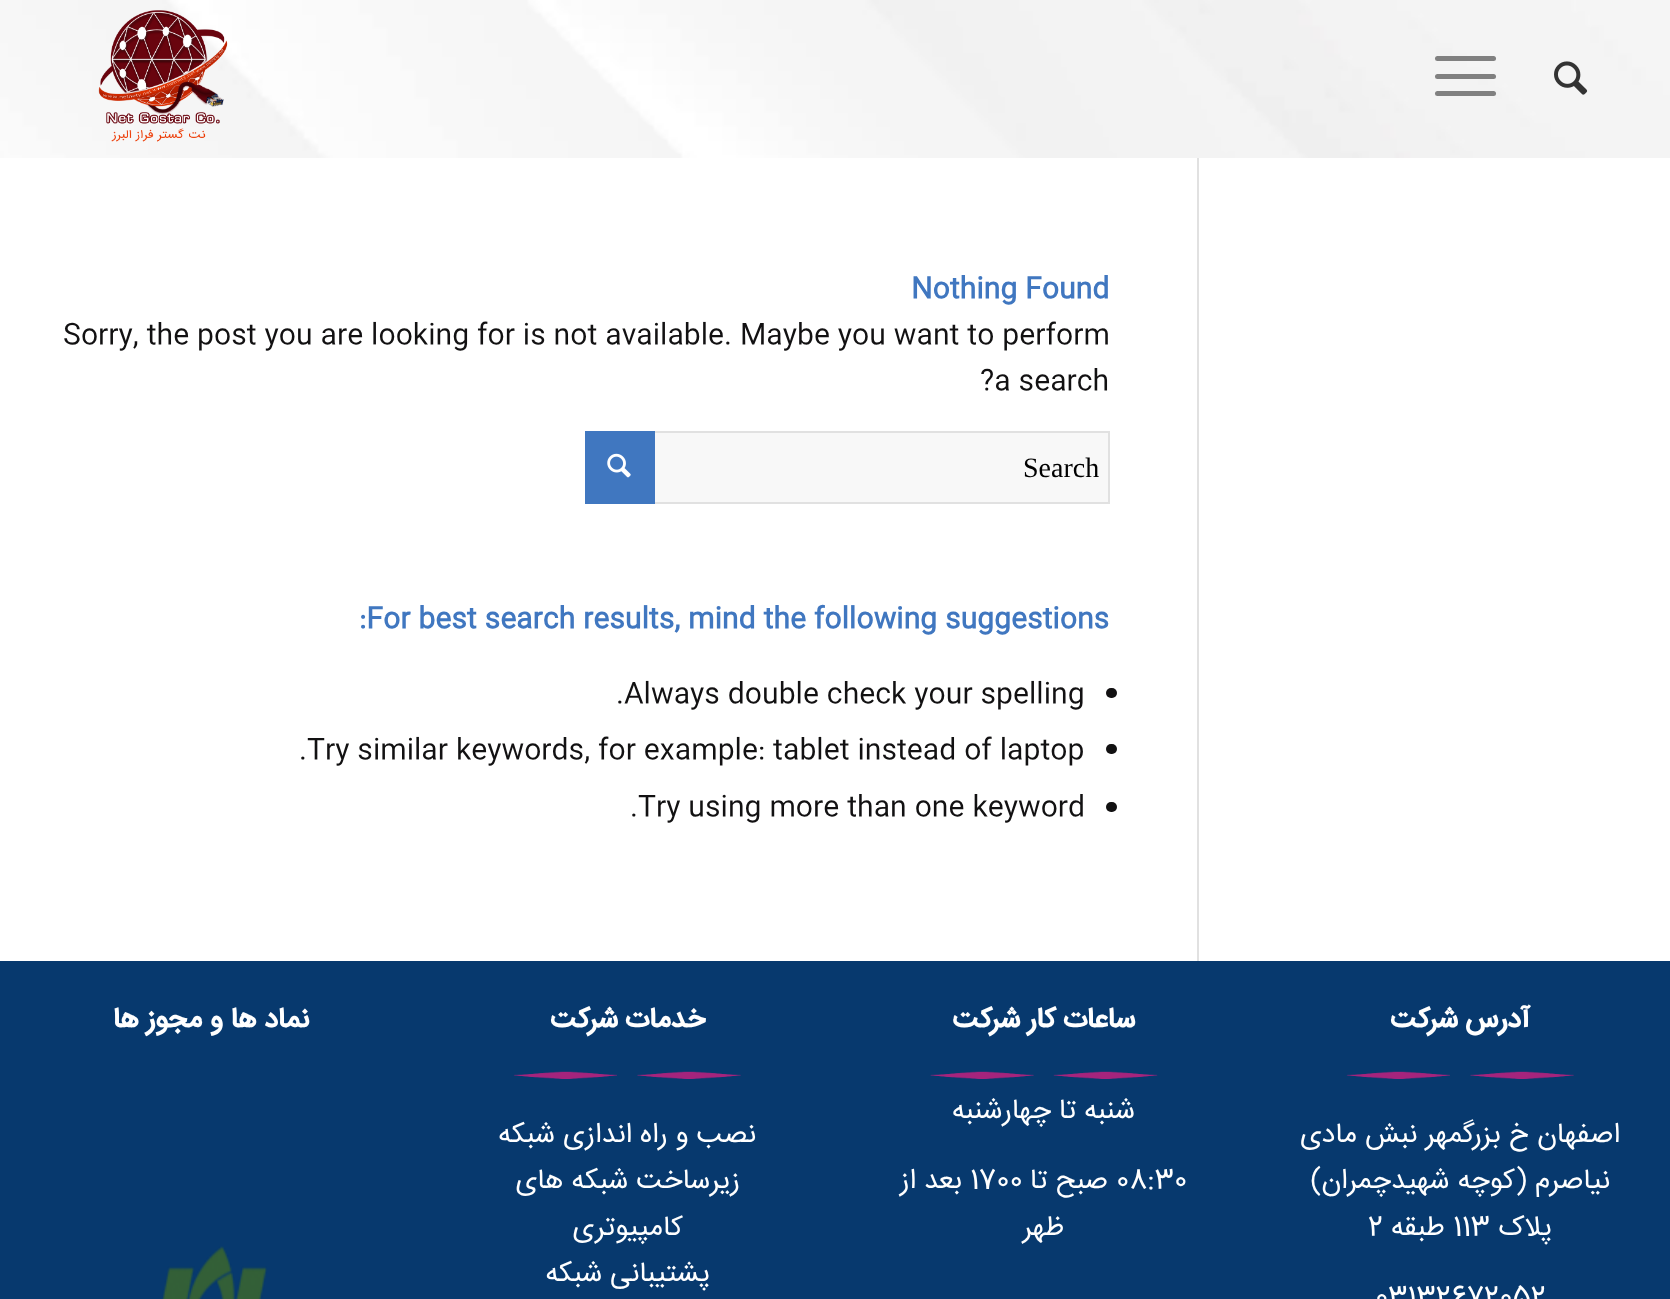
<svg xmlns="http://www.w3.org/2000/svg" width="1670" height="1299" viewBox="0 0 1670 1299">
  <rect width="100%" height="100%" fill="rgb(255,255,255)"/>
  <image x="0" y="0" width="1670" height="158" href="pic1.png"/>
  <image x="98" y="10" width="130" height="132" href="pic2.png"/>
  <rect x="1435" y="74" width="61" height="5" rx="2.5" fill="rgb(128,128,128)"/>
  <rect x="1435" y="56" width="61" height="5" rx="2.5" fill="rgb(128,128,128)"/>
  <rect x="1435" y="91" width="61" height="5" rx="2.5" fill="rgb(128,128,128)"/>
  <image x="1554" y="61" width="34" height="34" href="pic3.png"/>
  <rect x="1197" y="158" width="2" height="803" fill="rgb(225,225,225)"/>
  <text x="911" y="297" font-family="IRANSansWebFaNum" font-size="28" font-weight="bold" fill="rgb(64,119,192)">Nothing Found</text>
  <g font-family="IRANSansWebFaNum" font-size="28" fill="rgb(18,17,18)">
    <text x="63" y="343">Sorry, the post you are looking for is not available. Maybe you want to perform</text>
    <text x="980" y="389">?a search</text>
  </g>
  <rect x="655" y="433" width="453" height="69" fill="rgb(248,248,248)"/>
  <rect x="586" y="432" width="523" height="71" fill="none" stroke="rgb(225,225,225)" stroke-width="2"/>
  <rect x="585" y="431" width="70" height="73" fill="rgb(64,119,192)"/>
  <image x="607" y="453" width="24" height="25" href="pic4.png"/>
  <text x="1023" y="477" font-family="Liberation Serif" font-size="28" fill="rgb(0,0,0)">Search</text>
  <text x="359" y="627" font-family="IRANSansWebFaNum" font-size="28" font-weight="bold" fill="rgb(64,119,192)">:For best search results, mind the following suggestions</text>
  <text x="616" y="702" font-family="IRANSansWebFaNum" font-size="28" fill="rgb(18,17,18)">.Always double check your spelling</text>
  <rect x="1106" y="688" width="11" height="10" rx="5" fill="rgb(18,17,18)"/>
  <text x="299" y="758" font-family="IRANSansWebFaNum" font-size="28" fill="rgb(18,17,18)">.Try similar keywords, for example: tablet instead of laptop</text>
  <rect x="1106" y="744" width="11" height="10" rx="5" fill="rgb(18,17,18)"/>
  <text x="630" y="815" font-family="IRANSansWebFaNum" font-size="28" fill="rgb(18,17,18)">.Try using more than one keyword</text>
  <rect x="1106" y="802" width="11" height="10" rx="5" fill="rgb(18,17,18)"/>
  <rect x="0" y="961" width="1670" height="338" fill="rgb(7,57,110)"/>
  <text x="309" y="1027" font-family="'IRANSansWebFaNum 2'" font-size="28" font-weight="bold" direction="rtl" fill="rgb(255,255,255)">نماد ها و مجوز ها</text>
  <image x="162" y="1246" width="105" height="53" href="pic5.png"/>
  <text x="705" y="1027" font-family="'IRANSansWebFaNum 2'" font-size="28" font-weight="bold" direction="rtl" fill="rgb(255,255,255)">خدمات شرکت</text>
  <image x="513" y="1071" width="228" height="8" href="pic6.png"/>
  <g font-family="IRANSansWebFaNum" font-size="28" direction="rtl" fill="rgb(255,255,255)">
    <text x="756" y="1142">نصب و راه اندازی شبکه</text>
    <text x="740" y="1188">زیرساخت شبکه های</text>
    <text x="683" y="1235">کامپیوتری</text>
    <text x="710" y="1281">پشتیبانی شبکه</text>
  </g>
  <text x="1135" y="1027" font-family="'IRANSansWebFaNum 2'" font-size="28" font-weight="bold" direction="rtl" fill="rgb(255,255,255)">ساعات کار شرکت</text>
  <image x="930" y="1071" width="228" height="8" href="pic7.png"/>
  <g font-family="IRANSansWebFaNum" font-size="28" direction="rtl" fill="rgb(255,255,255)">
    <text x="1135" y="1118">شنبه تا چهارشنبه</text>
    <text x="962" y="1188">بعد از</text>
  </g>
  <text x="970" y="1188" font-family="IRANSansWebFaNum" font-size="28" fill="rgb(255,255,255)">1700</text>
  <text x="1108" y="1188" font-family="IRANSansWebFaNum" font-size="28" direction="rtl" fill="rgb(255,255,255)">صبح تا</text>
  <text x="1116" y="1188" font-family="IRANSansWebFaNum" font-size="28" fill="rgb(255,255,255)">08:30</text>
  <text x="1064" y="1235" font-family="IRANSansWebFaNum" font-size="28" direction="rtl" fill="rgb(255,255,255)">ظهر</text>
  <text x="1530" y="1027" font-family="'IRANSansWebFaNum 2'" font-size="28" font-weight="bold" direction="rtl" fill="rgb(255,255,255)">آدرس شرکت</text>
  <image x="1346" y="1071" width="228" height="8" href="pic6.png"/>
  <g font-family="IRANSansWebFaNum" font-size="28" direction="rtl" fill="rgb(255,255,255)">
    <text x="1620" y="1142">اصفهان خ بزرگمهر نبش مادی</text>
    <text x="1610" y="1188">نیاصرم (کوچه شهیدچمران)</text>
  </g>
  <text x="1368" y="1235" font-family="IRANSansWebFaNum" font-size="28" fill="rgb(255,255,255)">2</text>
  <text x="1445" y="1235" font-family="IRANSansWebFaNum" font-size="28" direction="rtl" fill="rgb(255,255,255)">طبقه</text>
  <text x="1453" y="1235" font-family="IRANSansWebFaNum" font-size="28" fill="rgb(255,255,255)">113</text>
  <text x="1552" y="1235" font-family="IRANSansWebFaNum" font-size="28" direction="rtl" fill="rgb(255,255,255)">پلاک</text>
  <text x="1375" y="1305" font-family="IRANSansWebFaNum" font-size="28" fill="rgb(255,255,255)">03132672052</text>
</svg>
